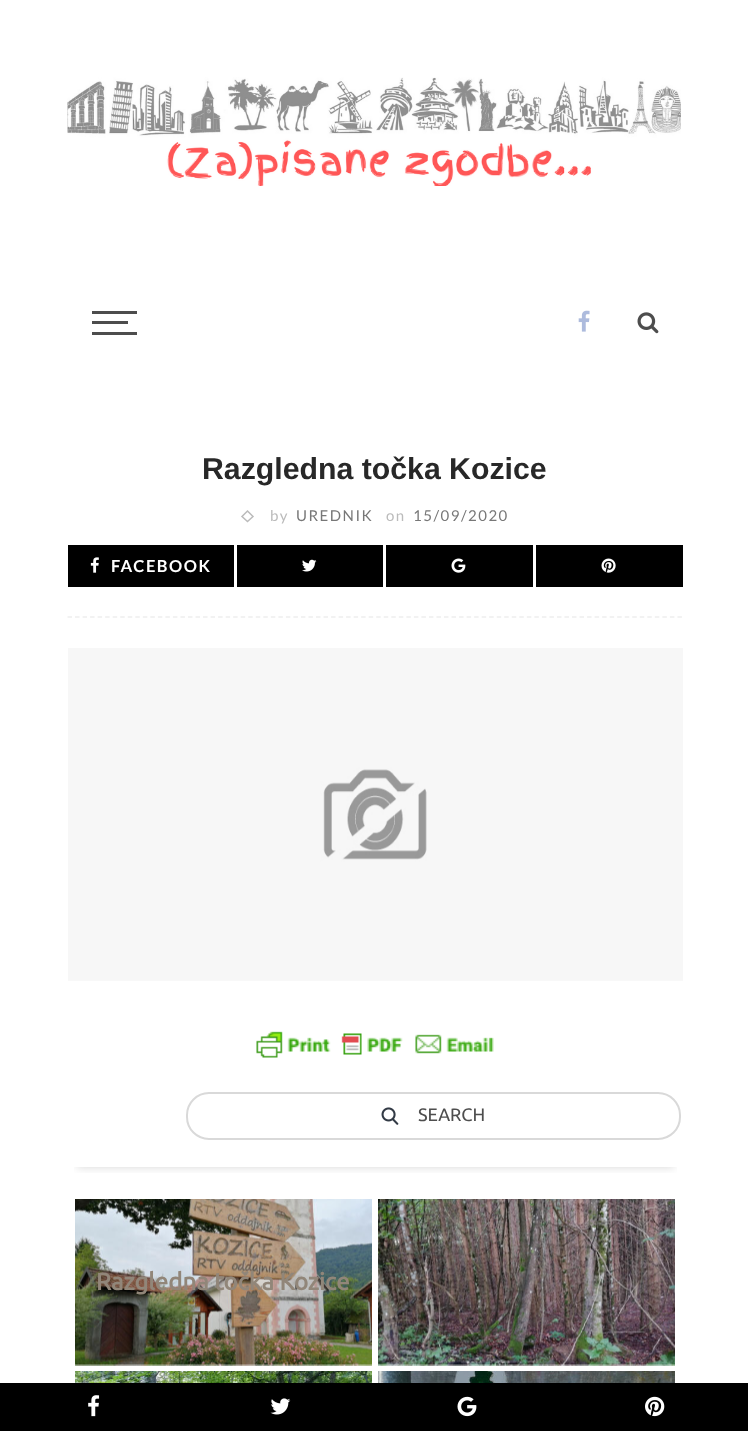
<svg xmlns="http://www.w3.org/2000/svg" width="748" height="1431" viewBox="0 0 748 1431">
  <defs>
    <clipPath id="clip1"><rect x="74" y="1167" width="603" height="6"/></clipPath>
  </defs>
  <rect width="100%" height="100%" fill="rgb(255,255,255)"/>
  <image x="67" y="77" width="614" height="109" href="pic1.png"/>
  <rect x="92" y="321" width="36" height="3" fill="rgb(77,77,77)"/>
  <rect x="92" y="311" width="45" height="3" fill="rgb(77,77,77)"/>
  <rect x="92" y="332" width="45" height="3" fill="rgb(77,77,77)"/>
  <image x="578" y="310" width="12" height="22" href="pic2.png"/>
  <image x="637" y="312" width="22" height="22" href="pic3.png"/>
  <path d="M67.5 617H682.5" fill="none" stroke="rgb(238,238,238)" stroke-width="1.5" stroke-dasharray="4.5 3.03"/>
  <text x="202" y="479" font-family="Liberation Sans" font-size="30.25" font-weight="bold" fill="rgb(40,40,40)">Razgledna točka Kozice</text>
  <path d="M247.5 511L253 516.5L247.5 521.5L242 516.5Z" fill="none" stroke="rgb(187,187,187)" stroke-width="1.5"/>
  <text x="270" y="521" font-family="Lato" font-size="15" letter-spacing="1.5" fill="rgb(187,187,187)">by</text>
  <text x="296" y="521" font-family="Lato" font-size="15" letter-spacing="1.5" fill="rgb(119,119,119)">UREDNIK</text>
  <text x="386" y="521" font-family="Lato" font-size="15" letter-spacing="1.5" fill="rgb(187,187,187)">on</text>
  <text x="413" y="521" font-family="Lato" font-size="15" letter-spacing="1.5" fill="rgb(119,119,119)">15/09/2020</text>
  <rect x="68" y="545" width="166" height="42" fill="rgb(0,0,0)"/>
  <image x="90" y="557" width="9" height="16" href="pic4.png"/>
  <text x="111" y="572" font-family="Lato" font-size="16.5" font-weight="bold" letter-spacing="1.5" fill="rgb(255,255,255)">FACEBOOK</text>
  <rect x="237" y="545" width="146" height="42" fill="rgb(0,0,0)"/>
  <image x="302" y="559" width="15" height="13" href="pic5.png"/>
  <rect x="386" y="545" width="147" height="42" fill="rgb(0,0,0)"/>
  <image x="451" y="558" width="15" height="15" href="pic6.png"/>
  <rect x="536" y="545" width="147" height="42" fill="rgb(0,0,0)"/>
  <image x="601" y="558" width="15" height="15" href="pic7.png"/>
  <image x="68" y="648" width="615" height="333" href="pic8.png"/>
  <image x="256" y="1031" width="238" height="27" href="pic9.png"/>
  <g clip-path="url(#clip1)">
    <rect x="77" y="1107" width="597" height="60" fill="rgba(0,0,0,0.16)" filter="blur(5px)"/>
  </g>
  <rect x="187" y="1093" width="493" height="46" rx="22" fill="none" stroke="rgb(217,217,217)" stroke-width="2"/>
  <image x="381" y="1107" width="18" height="18" href="pic10.png"/>
  <text x="418" y="1121" font-family="Ubuntu" font-size="18" fill="rgb(78,78,78)">SEARCH</text>
  <image x="75" y="1199" width="297" height="167" href="pic11.png"/>
  <text x="96" y="1290" font-family="Ubuntu" font-size="24" font-weight="bold" fill="rgb(145,134,121)">Razgledna točka Kozice</text>
  <image x="378" y="1199" width="297" height="167" href="pic12.png"/>
  <image x="75" y="1371" width="297" height="12" href="pic13.png"/>
  <image x="378" y="1371" width="297" height="12" href="pic14.png"/>
  <rect x="0" y="1383" width="748" height="48" fill="rgb(0,0,0)"/>
  <image x="88" y="1395" width="12" height="22" href="pic15.png"/>
  <image x="270" y="1398" width="21" height="17" href="pic16.png"/>
  <image x="457" y="1396" width="20" height="21" href="pic17.png"/>
  <image x="645" y="1396" width="20" height="21" href="pic18.png"/>
</svg>
